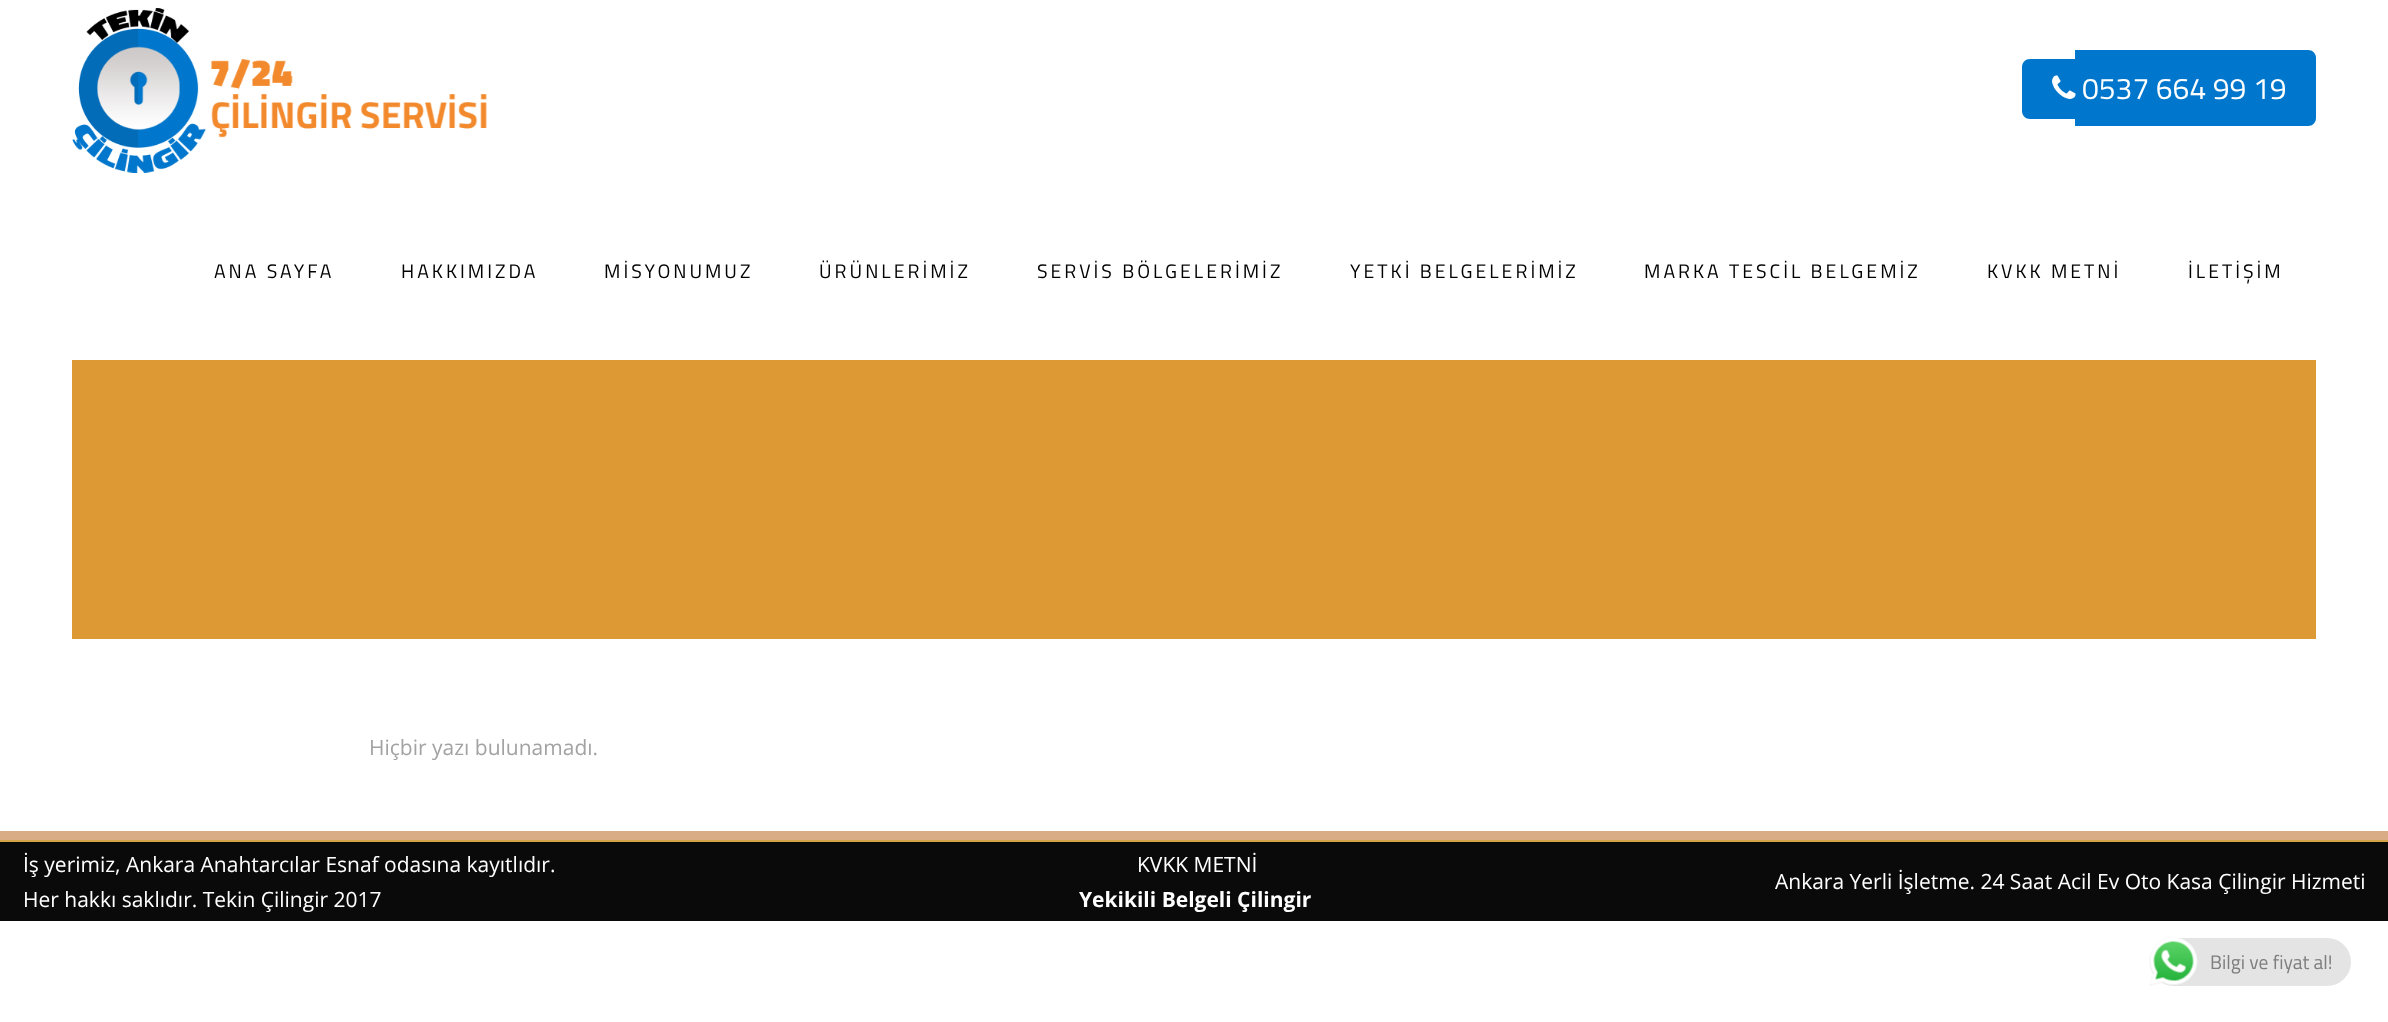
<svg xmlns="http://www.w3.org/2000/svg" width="2388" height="1022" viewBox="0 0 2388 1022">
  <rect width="100%" height="100%" fill="rgb(255,255,255)"/>
  <image x="72" y="8" width="415" height="165" href="pic1.png"/>
  <path d="M2030 59H2075V119H2030C2025.5 119 2022 115.5 2022 111V67C2022 62.5 2025.5 59 2030 59Z" fill="rgb(0,119,204)"/>
  <path d="M2075 50H2308C2312.5 50 2316 53.5 2316 58V118C2316 122.5 2312.5 126 2308 126H2075Z" fill="rgb(0,119,204)"/>
  <image x="2052" y="75" width="24" height="24" href="pic2.png"/>
  <text x="2082" y="99" font-family="Titillium Web" font-size="30" fill="rgb(255,255,255)">0537 664 99 19</text>
  <g font-family="Titillium Web" font-size="19.5" letter-spacing="3" fill="rgb(0,0,0)">
    <text x="214" y="278">ANA SAYFA</text>
    <text x="401" y="278">HAKKIMIZDA</text>
    <text x="604" y="278">MİSYONUMUZ</text>
    <text x="819" y="278">ÜRÜNLERİMİZ</text>
    <text x="1037" y="278">SERVİS BÖLGELERİMİZ</text>
    <text x="1350" y="278">YETKİ BELGELERİMİZ</text>
    <text x="1644" y="278">MARKA TESCİL BELGEMİZ</text>
    <text x="1987" y="278">KVKK METNİ</text>
    <text x="2188" y="278">İLETİŞİM</text>
  </g>
  <rect x="72" y="360" width="2244" height="279" fill="rgb(221,153,51)"/>
  <text x="369" y="755" font-family="Open Sans" font-size="21" fill="rgb(163,163,163)">Hiçbir yazı bulunamadı.</text>
  <rect x="0" y="842" width="2388" height="79" fill="rgb(10,10,10)"/>
  <rect x="0" y="831" width="2388" height="9" fill="rgb(217,172,134)"/>
  <rect x="0" y="840" width="2388" height="2" fill="rgb(211,164,72)"/>
  <g font-family="Open Sans" font-size="21" fill="rgb(255,255,255)">
    <text>
      <tspan x="23" y="872">İş yerimiz, Ankara Anahtarcılar Esnaf odasına kayıtlıdır.</tspan>
      <tspan x="23" y="907">Her hakkı saklıdır. Tekin Çilingir 2017</tspan>
    </text>
    <text x="1137" y="872">KVKK METNİ</text>
  </g>
  <text x="1079" y="907" font-family="Open Sans" font-size="21" font-weight="bold" fill="rgb(255,255,255)">Yekikili Belgeli Çilingir</text>
  <text x="1775" y="889" font-family="Open Sans" font-size="21" fill="rgb(255,255,255)">Ankara Yerli İşletme. 24 Saat Acil Ev Oto Kasa Çilingir Hizmeti</text>
  <rect x="2150" y="938" width="201" height="48" rx="24" fill="rgb(228,228,228)"/>
  <image x="2149" y="938" width="49" height="48" href="pic3.png"/>
  <text x="2210" y="969" font-family="Titillium Web" font-size="19.5" fill="rgb(127,125,125)">Bilgi ve fiyat al!</text>
</svg>
